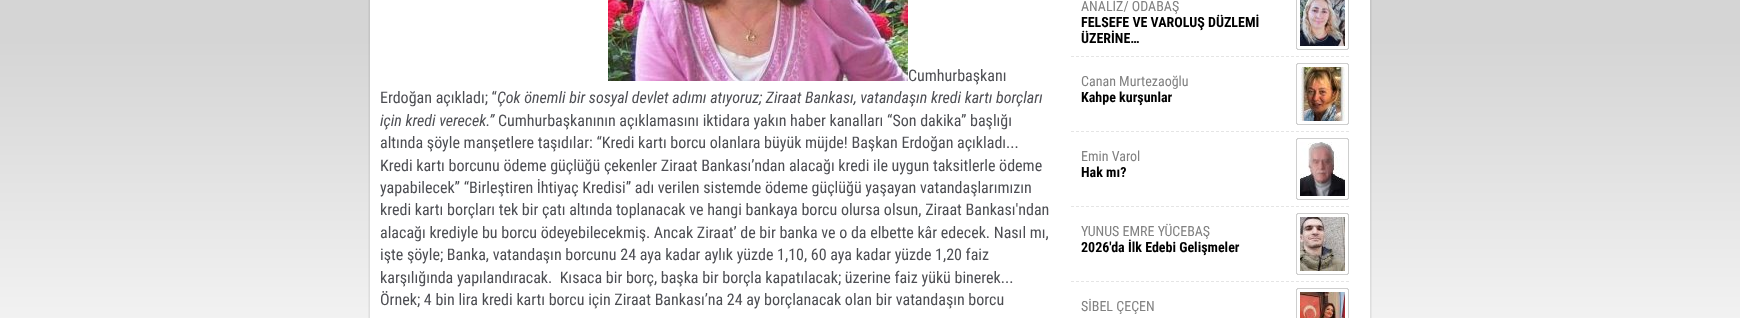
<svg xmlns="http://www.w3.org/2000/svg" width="1740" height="318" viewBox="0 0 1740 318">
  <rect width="100%" height="100%" fill="rgb(255,255,255)"/>
  <image x="0" y="0" width="1740" height="318" href="pic1.png"/>
  <image x="368" y="0" width="1004" height="318" href="pic2.png"/>
  <image x="608" y="0" width="300" height="81" href="pic3.png"/>
  <g font-family="Roboto Condensed" font-size="16" fill="rgb(77,78,83)">
    <text x="908" y="81">Cumhurbaşkanı</text>
    <text x="380" y="103">Erdoğan açıkladı; “</text>
  </g>
  <g font-family="Roboto Condensed" font-size="16" font-style="italic" fill="rgb(77,78,83)">
    <text x="497" y="103">Çok önemli bir sosyal devlet adımı atıyoruz; Ziraat Bankası, vatandaşın kredi kartı borçları</text>
    <text x="380" y="126">için kredi verecek.”</text>
  </g>
  <g font-family="Roboto Condensed" font-size="16" fill="rgb(77,78,83)">
    <text x="498" y="126">Cumhurbaşkanının açıklamasını iktidara yakın haber kanalları “Son dakika” başlığı</text>
    <text xml:space="preserve"><tspan x="380" y="148">altında şöyle manşetlere taşıdılar: “Kredi kartı borcu olanlara büyük müjde! Başkan Erdoğan açıkladı...</tspan><tspan x="380" y="171">Kredi kartı borcunu ödeme güçlüğü çekenler Ziraat Bankası’ndan alacağı kredi ile uygun taksitlerle ödeme</tspan><tspan x="380" y="193">yapabilecek” “Birleştiren İhtiyaç Kredisi” adı verilen sistemde ödeme güçlüğü yaşayan vatandaşlarımızın</tspan><tspan x="380" y="215">kredi kartı borçları tek bir çatı altında toplanacak ve hangi bankaya borcu olursa olsun, Ziraat Bankası'ndan</tspan><tspan x="380" y="238">alacağı krediyle bu borcu ödeyebilecekmiş. Ancak Ziraat’ de bir banka ve o da elbette kâr edecek. Nasıl mı,</tspan><tspan x="380" y="260">işte şöyle; Banka, vatandaşın borcunu 24 aya kadar aylık yüzde 1,10, 60 aya kadar yüzde 1,20 faiz</tspan><tspan x="380" y="283">karşılığında yapılandıracak.  Kısaca bir borç, başka bir borçla kapatılacak; üzerine faiz yükü binerek...</tspan><tspan x="380" y="305">Örnek; 4 bin lira kredi kartı borcu için Ziraat Bankası’na 24 ay borçlanacak olan bir vatandaşın borcu</tspan></text>
  </g>
  <image x="1071" y="0" width="278" height="57" href="pic4.png"/>
  <text x="1081" y="11" font-family="Roboto Condensed" font-size="14" fill="rgb(129,129,129)">ANALİZ/ ODABAŞ</text>
  <g font-family="Roboto Condensed" font-size="14" font-weight="bold" fill="rgb(0,0,0)">
    <text>
      <tspan x="1081" y="27">FELSEFE VE VAROLUŞ DÜZLEMİ</tspan>
      <tspan x="1081" y="43">ÜZERİNE…</tspan>
    </text>
  </g>
  <image x="1300" y="0" width="45" height="46" href="pic5.png"/>
  <image x="1071" y="63" width="278" height="69" href="pic6.png"/>
  <text x="1081" y="86" font-family="Roboto Condensed" font-size="14" fill="rgb(129,129,129)">Canan Murtezaoğlu</text>
  <text x="1081" y="102" font-family="Roboto Condensed" font-size="14" font-weight="bold" fill="rgb(0,0,0)">Kahpe kurşunlar</text>
  <image x="1300" y="67" width="45" height="54" href="pic7.png"/>
  <image x="1071" y="138" width="278" height="69" href="pic6.png"/>
  <text x="1081" y="161" font-family="Roboto Condensed" font-size="14" fill="rgb(129,129,129)">Emin Varol</text>
  <text x="1081" y="177" font-family="Roboto Condensed" font-size="14" font-weight="bold" fill="rgb(0,0,0)">Hak mı?</text>
  <image x="1300" y="142" width="45" height="54" href="pic8.png"/>
  <image x="1071" y="213" width="278" height="69" href="pic6.png"/>
  <text x="1081" y="236" font-family="Roboto Condensed" font-size="14" fill="rgb(129,129,129)">YUNUS EMRE YÜCEBAŞ</text>
  <text x="1081" y="252" font-family="Roboto Condensed" font-size="14" font-weight="bold" fill="rgb(0,0,0)">2026'da İlk Edebi Gelişmeler</text>
  <image x="1300" y="217" width="45" height="54" href="pic9.png"/>
  <image x="1296" y="288" width="53" height="30" href="pic10.png"/>
  <text x="1081" y="311" font-family="Roboto Condensed" font-size="14" fill="rgb(129,129,129)">SİBEL ÇEÇEN</text>
  <image x="1300" y="292" width="45" height="26" href="pic11.png"/>
</svg>
